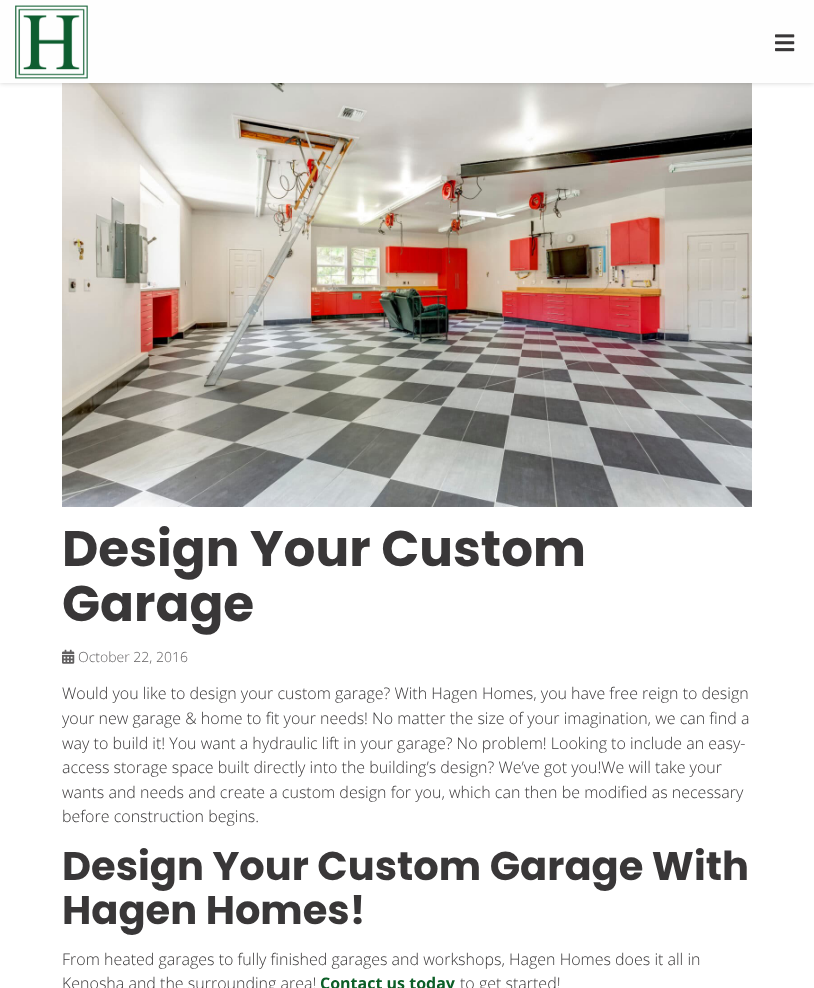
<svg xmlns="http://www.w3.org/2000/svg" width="814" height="988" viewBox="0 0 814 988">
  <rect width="100%" height="100%" fill="rgb(255,255,255)"/>
  <image x="62" y="83" width="690" height="424" href="pic3.png"/>
  <rect x="0" y="0" width="814" height="83" fill="rgba(0,0,0,0.19)" filter="blur(2.5px)"/>
  <rect x="0" y="0" width="814" height="83" fill="rgb(254,254,254)"/>
  <image x="15" y="5" width="73" height="74" href="pic1.png"/>
  <image x="775" y="34" width="20" height="18" href="pic2.png"/>
  <g font-family="Poppins" font-size="50" font-weight="bold" fill="rgb(57,55,56)">
    <text>
      <tspan x="62" y="566">Design Your Custom</tspan>
      <tspan x="62" y="621">Garage</tspan>
    </text>
  </g>
  <image x="62" y="649" width="13" height="15" href="pic4.png"/>
  <text x="78" y="662" font-family="Open Sans" font-size="14" font-weight="300" fill="rgb(97,95,96)">October 22, 2016</text>
  <g font-family="Open Sans" font-size="16" font-weight="300" fill="rgb(57,55,56)">
    <text>
      <tspan x="62" y="699">Would you like to design your custom garage? With Hagen Homes, you have free reign to design</tspan>
      <tspan x="62" y="724">your new garage &amp; home to fit your needs! No matter the size of your imagination, we can find a</tspan>
      <tspan x="62" y="749">way to build it! You want a hydraulic lift in your garage? No problem! Looking to include an easy-</tspan>
      <tspan x="62" y="773">access storage space built directly into the building’s design? We’ve got you!We will take your</tspan>
      <tspan x="62" y="798">wants and needs and create a custom design for you, which can then be modified as necessary</tspan>
      <tspan x="62" y="822">before construction begins.</tspan>
    </text>
  </g>
  <g font-family="Poppins" font-size="40" font-weight="bold" fill="rgb(57,55,56)">
    <text>
      <tspan x="62" y="880">Design Your Custom Garage With</tspan>
      <tspan x="62" y="924">Hagen Homes!</tspan>
    </text>
  </g>
  <g font-family="Open Sans" font-size="16" font-weight="300" fill="rgb(57,55,56)">
    <text>
      <tspan x="62" y="965">From heated garages to fully finished garages and workshops, Hagen Homes does it all in</tspan>
      <tspan x="62" y="989">Kenosha and the surrounding area!</tspan>
    </text>
  </g>
  <text x="320" y="989" font-family="Open Sans" font-size="16" font-weight="bold" fill="rgb(12,94,39)">Contact us today</text>
  <text x="460" y="989" font-family="Open Sans" font-size="16" font-weight="300" fill="rgb(57,55,56)">to get started!</text>
</svg>
